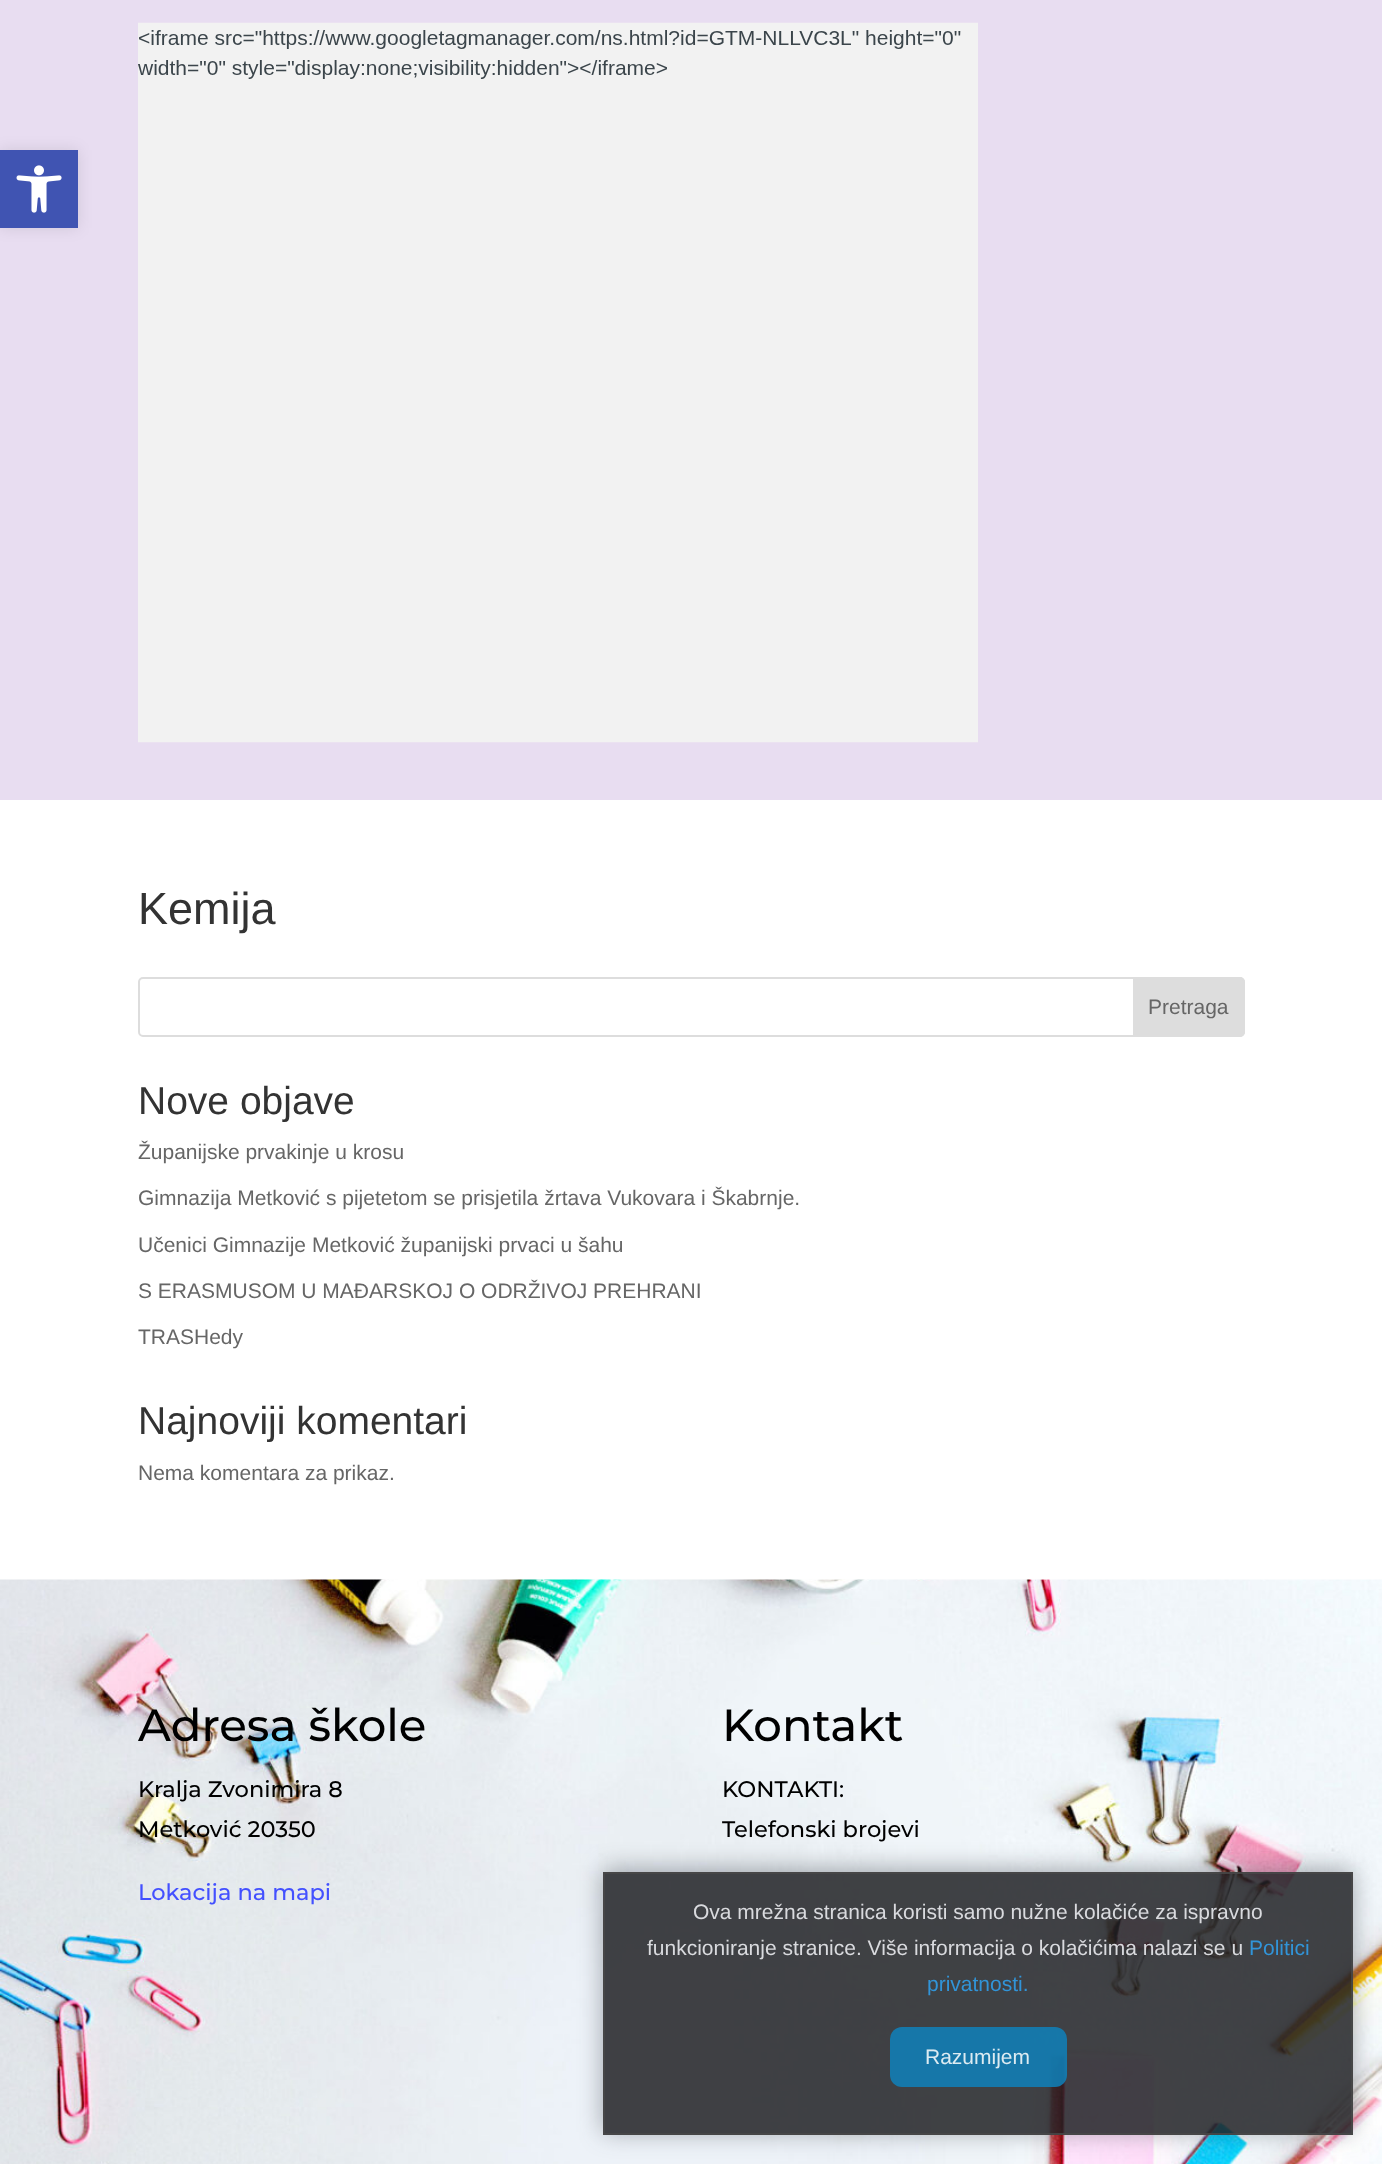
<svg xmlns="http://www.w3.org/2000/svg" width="1382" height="2164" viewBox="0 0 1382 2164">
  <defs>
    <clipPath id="clip1"><path d="M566 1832H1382V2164H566ZM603 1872H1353V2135H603Z" clip-rule="evenodd"/></clipPath>
  </defs>
  <rect width="100%" height="100%" fill="rgb(255,255,255)"/>
  <rect x="0" y="0" width="1382" height="800" fill="rgb(232,221,241)"/>
  <rect x="0" y="150" width="78" height="78" fill="rgba(0,0,0,0.1)" filter="blur(7.5px)"/>
  <rect x="0" y="150" width="78" height="78" fill="rgb(64,84,178)"/>
  <image x="16" y="165" width="46" height="48" href="pic1.png"/>
  <image x="138" y="22" width="840" height="721" href="pic2.png"/>
  <text x="138" y="924" font-family="Liberation Sans" font-size="45" fill="rgb(51,51,51)">Kemija</text>
  <rect x="139" y="978" width="1105" height="58" rx="4" fill="none" stroke="rgb(221,221,221)" stroke-width="2"/>
  <path d="M1134 978H1240C1242 978 1244 980 1244 982V1032C1244 1034 1242 1036 1240 1036H1134Z" fill="rgb(221,221,221)" stroke="rgb(221,221,221)" stroke-width="2"/>
  <text x="1148" y="1014" font-family="Liberation Sans" font-size="21" fill="rgb(102,102,102)">Pretraga</text>
  <text x="138" y="1114" font-family="Liberation Sans" font-size="39" fill="rgb(51,51,51)">Nove objave</text>
  <g font-family="Liberation Sans" font-size="21" fill="rgb(102,102,102)">
    <text x="138" y="1159">Županijske prvakinje u krosu</text>
    <text x="138" y="1205">Gimnazija Metković s pijetetom se prisjetila žrtava Vukovara i Škabrnje.</text>
    <text x="138" y="1252">Učenici Gimnazije Metković županijski prvaci u šahu</text>
    <text x="138" y="1298">S ERASMUSOM U MAĐARSKOJ O ODRŽIVOJ PREHRANI</text>
    <text x="138" y="1344">TRASHedy</text>
  </g>
  <text x="138" y="1434" font-family="Liberation Sans" font-size="39" fill="rgb(51,51,51)">Najnoviji komentari</text>
  <text x="138" y="1480" font-family="Liberation Sans" font-size="21" fill="rgb(102,102,102)">Nema komentara za prikaz.</text>
  <image x="0" y="1579" width="1382" height="585" href="pic3.png"/>
  <text x="138" y="1741" font-family="Montserrat" font-size="45" font-weight="500" fill="rgb(0,0,0)">Adresa škole</text>
  <g font-family="Montserrat" font-size="22.5" font-weight="500" fill="rgb(0,0,0)">
    <text>
      <tspan x="138" y="1797">Kralja Zvonimira 8</tspan>
      <tspan x="138" y="1837">Metković 20350</tspan>
    </text>
  </g>
  <text x="138" y="1900" font-family="Montserrat" font-size="22.5" font-weight="500" fill="rgb(67,80,255)">Lokacija na mapi</text>
  <text x="722" y="1741" font-family="Montserrat" font-size="45" font-weight="500" fill="rgb(0,0,0)">Kontakt</text>
  <g font-family="Montserrat" font-size="22.5" font-weight="500" fill="rgb(0,0,0)">
    <text>
      <tspan x="722" y="1797">KONTAKTI:</tspan>
      <tspan x="722" y="1837">Telefonski brojevi</tspan>
    </text>
  </g>
  <g clip-path="url(#clip1)">
    <rect x="603" y="1869" width="750" height="263" fill="rgba(47,54,64,0.42)" filter="blur(12px)"/>
  </g>
  <rect x="603" y="1872" width="750" height="263" fill="rgba(32,33,36,0.85)"/>
  <rect x="604" y="1873" width="748" height="261" fill="none" stroke="rgba(72,72,72,0.85)" stroke-width="2"/>
  <g font-family="Liberation Sans" font-size="21" fill="rgb(217,218,222)">
    <text x="693" y="1919">Ova mrežna stranica koristi samo nužne kolačiće za ispravno</text>
    <text x="647" y="1955">funkcioniranje stranice. Više informacija o kolačićima nalazi se u</text>
  </g>
  <g font-family="Liberation Sans" font-size="21" fill="rgb(49,148,216)">
    <text x="1249" y="1955">Politici</text>
    <text x="927" y="1991">privatnosti.</text>
  </g>
  <rect x="890" y="2027" width="177" height="60" rx="12" fill="rgba(15,129,187,0.85)"/>
  <text x="925" y="2064" font-family="Liberation Sans" font-size="21" fill="rgb(220,235,242)">Razumijem</text>
</svg>
